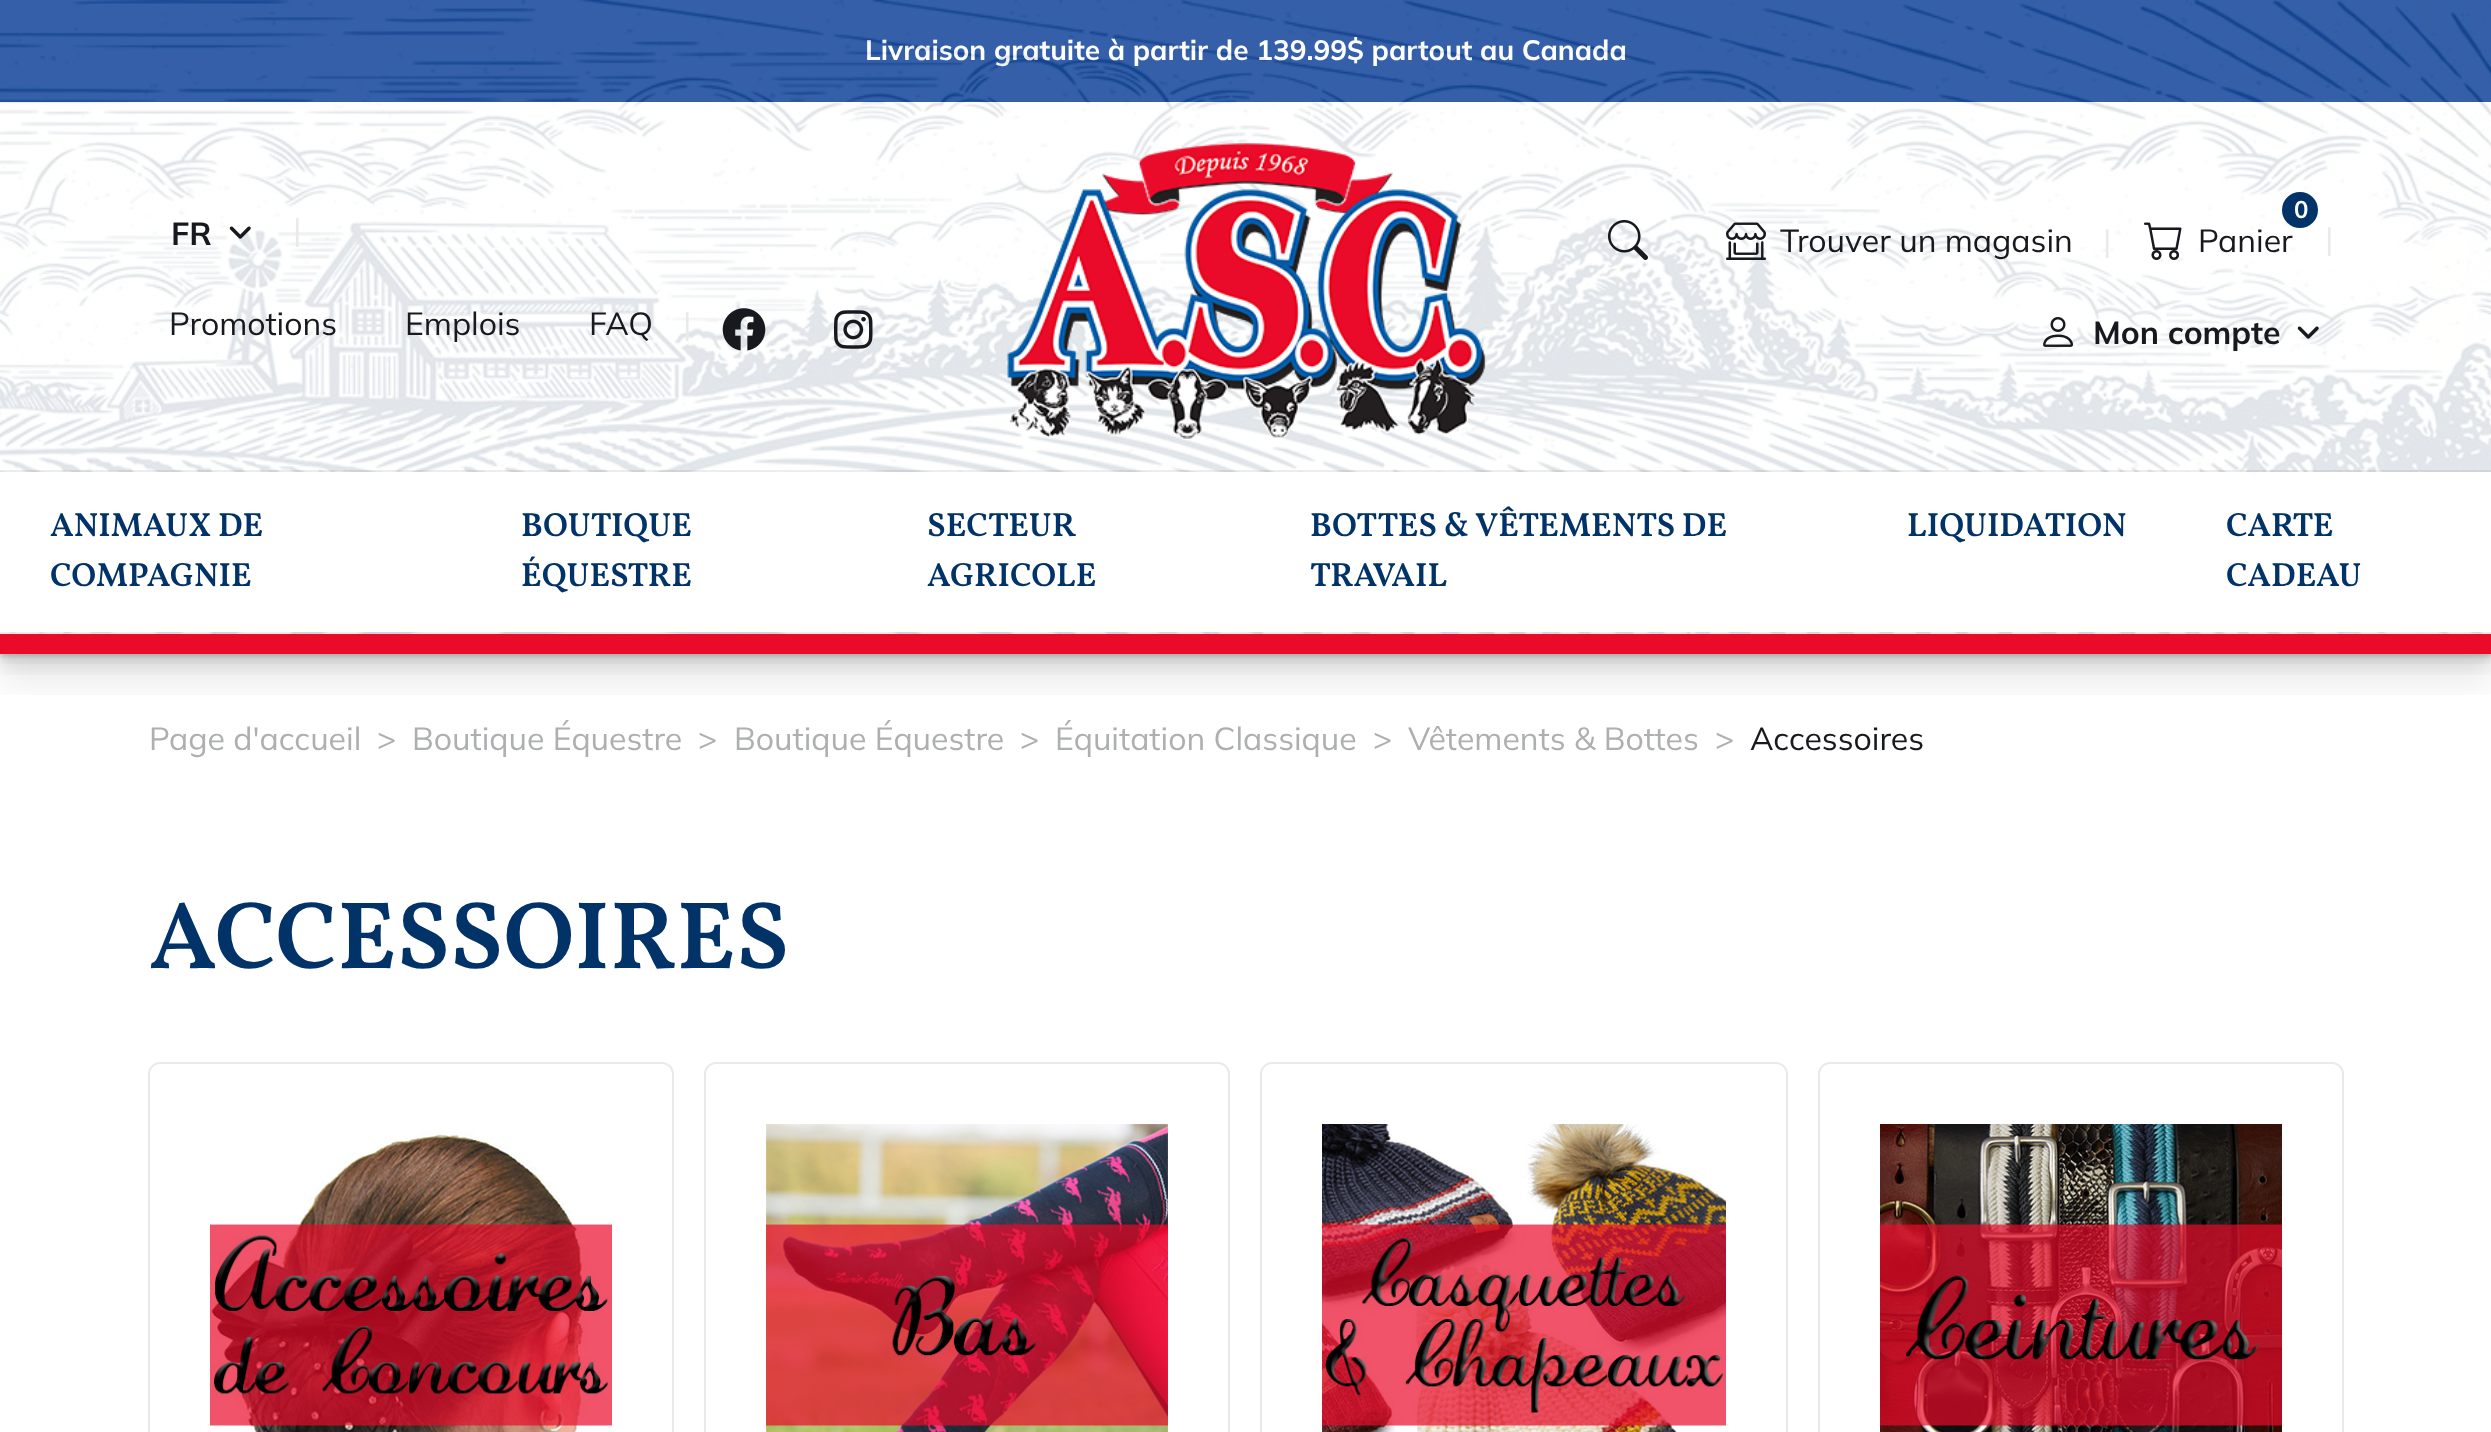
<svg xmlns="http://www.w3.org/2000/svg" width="2491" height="1432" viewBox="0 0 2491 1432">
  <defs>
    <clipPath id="clip1"><rect x="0" y="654" width="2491" height="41"/></clipPath>
    <clipPath id="clip2"><rect x="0" y="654" width="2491" height="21"/></clipPath>
    <clipPath id="clip3"><rect x="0" y="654" width="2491" height="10"/></clipPath>
    <clipPath id="clip4"><rect x="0" y="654" width="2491" height="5"/></clipPath>
    <clipPath id="clip5"><rect x="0" y="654" width="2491" height="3"/></clipPath>
  </defs>
  <rect width="100%" height="100%" fill="rgb(255,255,255)"/>
  <g clip-path="url(#clip1)">
    <rect x="0" y="32" width="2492" height="654" fill="rgba(0,0,0,0.07)" filter="blur(16px)"/>
  </g>
  <g clip-path="url(#clip2)">
    <rect x="0" y="16" width="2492" height="654" fill="rgba(0,0,0,0.07)" filter="blur(8px)"/>
  </g>
  <g clip-path="url(#clip3)">
    <rect x="0" y="8" width="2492" height="654" fill="rgba(0,0,0,0.07)" filter="blur(4px)"/>
  </g>
  <g clip-path="url(#clip4)">
    <rect x="0" y="4" width="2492" height="654" fill="rgba(0,0,0,0.07)" filter="blur(2px)"/>
  </g>
  <g clip-path="url(#clip5)">
    <rect x="0" y="2" width="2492" height="654" fill="rgba(0,0,0,0.07)" filter="blur(1px)"/>
  </g>
  <rect x="0" y="634" width="2491" height="20" fill="rgb(234,10,42)"/>
  <rect x="0" y="0" width="2491" height="102" fill="rgb(9,61,151)"/>
  <text x="865" y="60" font-family="Mulish" font-size="28" font-weight="bold" fill="rgb(255,255,255)">Livraison gratuite à partir de 139.99$ partout au Canada</text>
  <rect x="0" y="470" width="2491" height="2" fill="rgb(234,234,234)"/>
  <rect x="0" y="632" width="2491" height="2" fill="rgb(234,234,234)"/>
  <image x="0" y="0" width="2491" height="634" href="pic1.png"/>
  <text x="171" y="245" font-family="Mulish" font-size="32" font-weight="bold" fill="rgb(24,25,30)">FR</text>
  <image x="229" y="226" width="22" height="13" href="pic2.png"/>
  <text x="293" y="241" font-family="Mulish" font-size="32" fill="rgb(234,234,234)">|</text>
  <g font-family="Mulish" font-size="32" fill="rgb(24,25,30)">
    <text x="169" y="335">Promotions</text>
    <text x="405" y="335">Emplois</text>
    <text x="589" y="335">FAQ</text>
  </g>
  <text x="683" y="335" font-family="Mulish" font-size="32" fill="rgb(234,234,234)">|</text>
  <image x="722" y="308" width="44" height="43" href="pic3.png"/>
  <image x="834" y="310" width="39" height="39" href="pic4.png"/>
  <image x="1007" y="143" width="479" height="297" href="pic5.png"/>
  <image x="1608" y="220" width="40" height="40" href="pic6.png"/>
  <image x="1726" y="222" width="40" height="38" href="pic7.png"/>
  <text x="1780" y="252" font-family="Mulish" font-size="32" fill="rgb(24,25,30)">Trouver un magasin</text>
  <text x="2103" y="252" font-family="Mulish" font-size="32" fill="rgb(234,234,234)">|</text>
  <circle cx="2300" cy="210" r="18" fill="rgb(1,51,105)"/>
  <text x="2294" y="218" font-family="Mulish" font-size="24" font-weight="bold" fill="rgb(255,255,255)">0</text>
  <image x="2144" y="222" width="38" height="38" href="pic8.png"/>
  <text x="2198" y="252" font-family="Mulish" font-size="32" fill="rgb(24,25,30)">Panier</text>
  <text x="2325" y="250" font-family="Mulish" font-size="32" fill="rgb(234,234,234)">|</text>
  <image x="2043" y="317" width="31" height="30" href="pic9.png"/>
  <text x="2093" y="344" font-family="Mulish" font-size="32" font-weight="bold" fill="rgb(24,25,30)">Mon compte</text>
  <image x="2297" y="326" width="22" height="13" href="pic10.png"/>
  <rect x="0" y="472" width="2491" height="160" fill="rgb(255,255,255)"/>
  <g font-family="Vollkorn" font-size="33.6" font-weight="600" fill="rgb(1,51,105)">
    <text>
      <tspan x="50" y="536">ANIMAUX DE</tspan>
      <tspan x="50" y="586">COMPAGNIE</tspan>
    </text>
    <text>
      <tspan x="521" y="536">BOUTIQUE</tspan>
      <tspan x="521" y="586">ÉQUESTRE</tspan>
    </text>
    <text>
      <tspan x="927" y="536">SECTEUR</tspan>
      <tspan x="927" y="586">AGRICOLE</tspan>
    </text>
    <text>
      <tspan x="1310" y="536">BOTTES &amp; VÊTEMENTS DE</tspan>
      <tspan x="1310" y="586">TRAVAIL</tspan>
    </text>
    <text x="1907" y="536">LIQUIDATION</text>
    <text>
      <tspan x="2226" y="536">CARTE</tspan>
      <tspan x="2226" y="586">CADEAU</tspan>
    </text>
  </g>
  <g font-family="Mulish" font-size="32" fill="rgb(174,175,176)">
    <text x="149" y="750">Page d'accueil</text>
    <text x="377" y="750">&gt;</text>
    <text x="412" y="750">Boutique Équestre</text>
    <text x="698" y="750">&gt;</text>
    <text x="734" y="750">Boutique Équestre</text>
    <text x="1020" y="750">&gt;</text>
    <text x="1055" y="750">Équitation Classique</text>
    <text x="1373" y="750">&gt;</text>
    <text x="1408" y="750">Vêtements &amp; Bottes</text>
    <text x="1715" y="750">&gt;</text>
  </g>
  <text x="1750" y="750" font-family="Mulish" font-size="32" fill="rgb(24,25,30)">Accessoires</text>
  <text x="149" y="968" font-family="Vollkorn" font-size="96" font-weight="600" fill="rgb(1,51,105)">ACCESSOIRES</text>
  <rect x="149" y="1063" width="524" height="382" rx="11" fill="none" stroke="rgb(234,234,234)" stroke-width="2"/>
  <image x="210" y="1131" width="402" height="301" href="pic11.png"/>
  <rect x="705" y="1063" width="524" height="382" rx="11" fill="none" stroke="rgb(234,234,234)" stroke-width="2"/>
  <image x="766" y="1124" width="402" height="308" href="pic12.png"/>
  <rect x="1261" y="1063" width="526" height="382" rx="11" fill="none" stroke="rgb(234,234,234)" stroke-width="2"/>
  <image x="1322" y="1124" width="404" height="308" href="pic13.png"/>
  <rect x="1819" y="1063" width="524" height="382" rx="11" fill="none" stroke="rgb(234,234,234)" stroke-width="2"/>
  <image x="1880" y="1124" width="402" height="308" href="pic14.png"/>
</svg>
